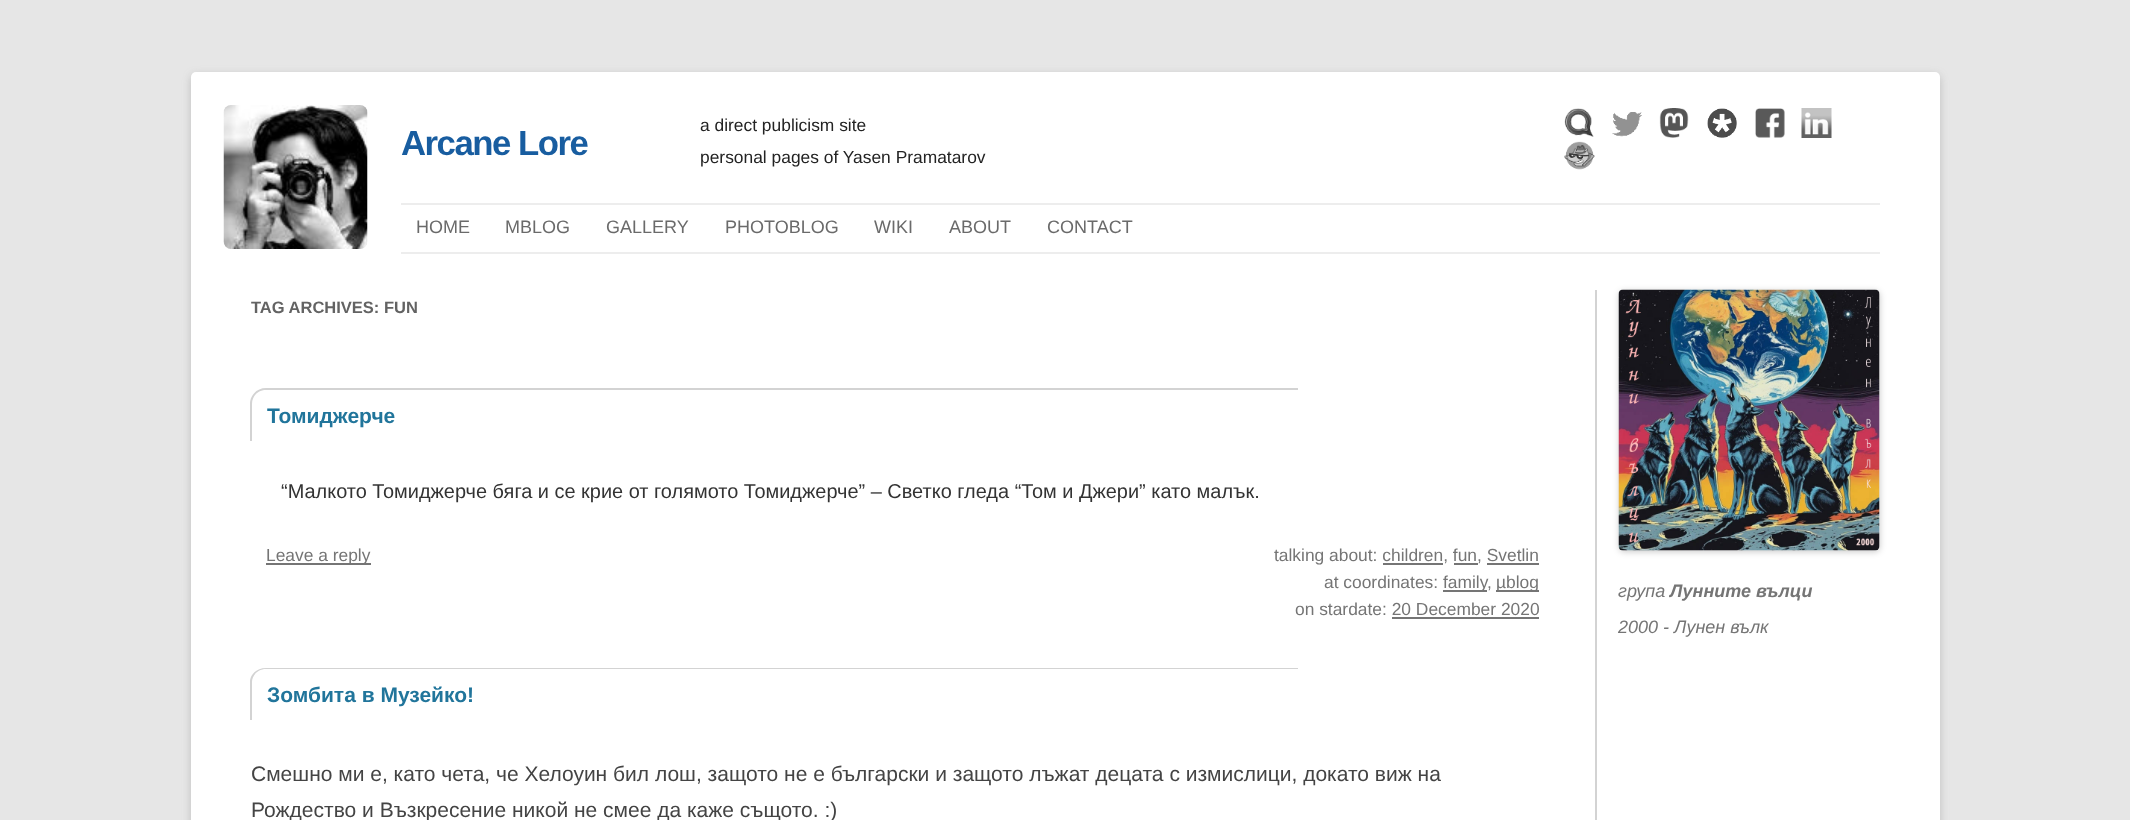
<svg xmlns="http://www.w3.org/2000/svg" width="2130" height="820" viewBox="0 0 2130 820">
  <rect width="100%" height="100%" fill="rgb(230,230,230)"/>
  <rect x="191" y="75" width="1749" height="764" rx="5" fill="rgba(100,100,100,0.3)" filter="blur(4.5px)"/>
  <rect x="191" y="72" width="1749" height="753" rx="5" fill="rgb(255,255,255)"/>
  <image x="223" y="105" width="145" height="144" href="pic1.png"/>
  <text x="401" y="155" font-family="Liberation Sans" font-size="34.75" font-weight="bold" letter-spacing="-1.5" fill="rgb(24,93,160)">Arcane Lore</text>
  <g font-family="Liberation Sans" font-size="17.4" fill="rgb(35,35,35)">
    <text>
      <tspan x="700" y="131">a direct publicism site</tspan>
      <tspan x="700" y="163">personal pages of Yasen Pramatarov</tspan>
    </text>
  </g>
  <image x="1564" y="108" width="30" height="29" href="pic2.png"/>
  <image x="1612" y="112" width="30" height="25" href="pic3.png"/>
  <image x="1659" y="108" width="30" height="30" href="pic4.png"/>
  <image x="1707" y="108" width="30" height="30" href="pic5.png"/>
  <image x="1755" y="108" width="30" height="30" href="pic6.png"/>
  <image x="1801" y="108" width="31" height="30" href="pic7.png"/>
  <image x="1564" y="141" width="31" height="29" href="pic8.png"/>
  <rect x="401" y="203" width="1479" height="2" fill="rgb(237,237,237)"/>
  <rect x="401" y="252" width="1479" height="2" fill="rgb(237,237,237)"/>
  <g font-family="Liberation Sans" font-size="18" fill="rgb(106,106,106)">
    <text x="416" y="233">HOME</text>
    <text x="505" y="233">ΜBLOG</text>
    <text x="606" y="233">GALLERY</text>
    <text x="725" y="233">PHOTOBLOG</text>
    <text x="874" y="233">WIKI</text>
    <text x="949" y="233">ABOUT</text>
    <text x="1047" y="233">CONTACT</text>
  </g>
  <text x="251" y="313" font-family="Liberation Sans" font-size="16.5" font-weight="bold" fill="rgb(99,99,99)">TAG ARCHIVES: FUN</text>
  <path d="M266 388H1298V441H250V404C250 395 257 388 266 388ZM266 390H1298V441H252V404C252 396 258 390 266 390Z" fill="rgb(211,211,211)" fill-rule="evenodd"/>
  <text x="267" y="423" font-family="Liberation Sans" font-size="21" font-weight="bold" fill="rgb(33,117,155)">Томиджерче</text>
  <text x="281" y="498" font-family="Liberation Sans" font-size="19.95" fill="rgb(51,51,51)">“Малкото Томиджерче бяга и се крие от голямото Томиджерче” – Светко гледа “Том и Джери” като малък.</text>
  <rect x="266" y="563" width="105" height="2" fill="rgb(117,117,117)"/>
  <g font-family="Liberation Sans" font-size="17.4" fill="rgb(117,117,117)">
    <text x="266" y="561">Leave a reply</text>
    <text x="1274" y="561">talking about: children, fun, Svetlin</text>
  </g>
  <rect x="1383" y="563" width="60" height="2" fill="rgb(117,117,117)"/>
  <rect x="1454" y="563" width="24" height="2" fill="rgb(117,117,117)"/>
  <rect x="1487" y="563" width="52" height="2" fill="rgb(117,117,117)"/>
  <text x="1324" y="588" font-family="Liberation Sans" font-size="17.4" fill="rgb(117,117,117)">at coordinates:</text>
  <rect x="1443" y="590" width="44" height="2" fill="rgb(117,117,117)"/>
  <g font-family="Liberation Sans" font-size="17.4" fill="rgb(117,117,117)">
    <text x="1443" y="588">family</text>
    <text x="1487" y="588">,</text>
  </g>
  <rect x="1496" y="590" width="43" height="2" fill="rgb(117,117,117)"/>
  <g font-family="Liberation Sans" font-size="17.4" fill="rgb(117,117,117)">
    <text x="1496" y="588">µblog</text>
    <text x="1295" y="615">on stardate: 20 December 2020</text>
  </g>
  <rect x="1392" y="617" width="147" height="2" fill="rgb(117,117,117)"/>
  <path d="M266 668H1298V720H250V682C250 674 257 668 266 668ZM266 669H1298V720H252V682C252 675 258 669 266 669Z" fill="rgb(211,211,211)" fill-rule="evenodd"/>
  <text x="267" y="702" font-family="Liberation Sans" font-size="21" font-weight="bold" fill="rgb(33,117,155)">Зомбита в Музейко!</text>
  <g font-family="Liberation Sans" font-size="21" fill="rgb(68,68,68)">
    <text>
      <tspan x="251" y="781">Смешно ми е, като чета, че Хелоуин бил лош, защото не е български и защото лъжат децата с измислици, докато виж на</tspan>
      <tspan x="251" y="817">Рождество и Възкресение никой не смее да каже същото. :)</tspan>
    </text>
  </g>
  <rect x="1595" y="290" width="2" height="530" fill="rgb(211,211,211)"/>
  <rect x="1619" y="291" width="261" height="261" rx="5" fill="rgba(0,0,0,0.2)" filter="blur(3px)"/>
  <image x="1618" y="289" width="262" height="262" href="pic9.png"/>
  <text x="1618" y="597" font-family="Liberation Sans" font-size="18" font-style="italic" fill="rgb(117,117,117)">група</text>
  <text x="1670" y="597" font-family="Liberation Sans" font-size="18" font-weight="bold" font-style="italic" fill="rgb(117,117,117)">Лунните вълци</text>
  <text x="1618" y="633" font-family="Liberation Sans" font-size="18" font-style="italic" fill="rgb(117,117,117)">2000 - Лунен вълк</text>
</svg>
